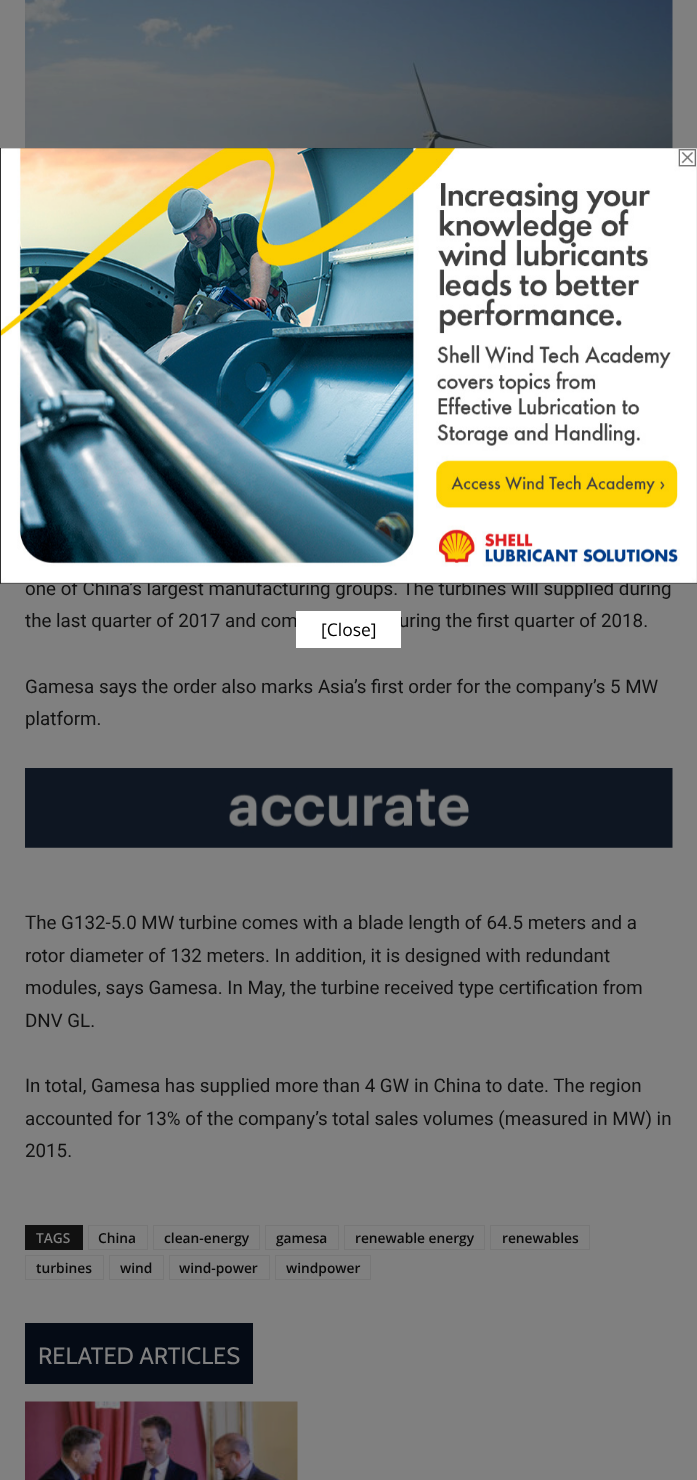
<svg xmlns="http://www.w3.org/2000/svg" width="697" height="1480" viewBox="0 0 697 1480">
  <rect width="100%" height="100%" fill="rgb(128,128,128)"/>
  <image x="25" y="0" width="648" height="148" href="pic1.png"/>
  <g font-family="Roboto" font-size="18.75" fill="rgb(17,17,17)">
    <text>
      <tspan x="25" y="595">one of China’s largest manufacturing groups. The turbines will supplied during</tspan>
      <tspan x="25" y="627">the last quarter of 2017 and com</tspan>
    </text>
    <text x="399" y="627">uring the first quarter of 2018.</text>
    <text>
      <tspan x="25" y="693">Gamesa says the order also marks Asia’s first order for the company’s 5 MW</tspan>
      <tspan x="25" y="725">platform.</tspan>
    </text>
  </g>
  <image x="25" y="768" width="648" height="80" href="pic2.png"/>
  <g font-family="Roboto" font-size="18.75" fill="rgb(17,17,17)">
    <text>
      <tspan x="25" y="929">The G132-5.0 MW turbine comes with a blade length of 64.5 meters and a</tspan>
      <tspan x="25" y="962">rotor diameter of 132 meters. In addition, it is designed with redundant</tspan>
      <tspan x="25" y="994">modules, says Gamesa. In May, the turbine received type certification from</tspan>
      <tspan x="25" y="1027">DNV GL.</tspan>
    </text>
    <text>
      <tspan x="25" y="1092">In total, Gamesa has supplied more than 4 GW in China to date. The region</tspan>
      <tspan x="25" y="1125">accounted for 13% of the company’s total sales volumes (measured in MW) in</tspan>
      <tspan x="25" y="1157">2015.</tspan>
    </text>
  </g>
  <rect x="25" y="1225" width="58" height="25" fill="rgb(17,17,17)"/>
  <text x="36" y="1243" font-family="Open Sans" font-size="13.75" font-weight="600" fill="rgb(128,128,128)">TAGS</text>
  <rect x="88.5" y="1225.5" width="59" height="24" fill="none" stroke="rgb(119,119,119)"/>
  <text x="98" y="1243" font-family="Open Sans" font-size="13.75" font-weight="600" fill="rgb(9,9,9)">China</text>
  <rect x="153.5" y="1225.5" width="106" height="24" fill="none" stroke="rgb(119,119,119)"/>
  <text x="164" y="1243" font-family="Open Sans" font-size="13.75" font-weight="600" fill="rgb(9,9,9)">clean-energy</text>
  <rect x="265.5" y="1225.5" width="73" height="24" fill="none" stroke="rgb(119,119,119)"/>
  <text x="276" y="1243" font-family="Open Sans" font-size="13.75" font-weight="600" fill="rgb(9,9,9)">gamesa</text>
  <rect x="344.5" y="1225.5" width="140" height="24" fill="none" stroke="rgb(119,119,119)"/>
  <text x="355" y="1243" font-family="Open Sans" font-size="13.75" font-weight="600" fill="rgb(9,9,9)">renewable energy</text>
  <rect x="490.5" y="1225.5" width="99" height="24" fill="none" stroke="rgb(119,119,119)"/>
  <text x="502" y="1243" font-family="Open Sans" font-size="13.75" font-weight="600" fill="rgb(9,9,9)">renewables</text>
  <rect x="25.5" y="1255.5" width="78" height="24" fill="none" stroke="rgb(119,119,119)"/>
  <text x="36" y="1273" font-family="Open Sans" font-size="13.75" font-weight="600" fill="rgb(9,9,9)">turbines</text>
  <rect x="109.5" y="1255.5" width="54" height="24" fill="none" stroke="rgb(119,119,119)"/>
  <text x="120" y="1273" font-family="Open Sans" font-size="13.75" font-weight="600" fill="rgb(9,9,9)">wind</text>
  <rect x="169.5" y="1255.5" width="100" height="24" fill="none" stroke="rgb(119,119,119)"/>
  <text x="179" y="1273" font-family="Open Sans" font-size="13.75" font-weight="600" fill="rgb(9,9,9)">wind-power</text>
  <rect x="275.5" y="1255.5" width="95" height="24" fill="none" stroke="rgb(119,119,119)"/>
  <text x="286" y="1273" font-family="Open Sans" font-size="13.75" font-weight="600" fill="rgb(9,9,9)">windpower</text>
  <rect x="25" y="1323" width="228" height="61" fill="rgb(5,11,21)"/>
  <text x="38" y="1364" font-family="Cabin" font-size="23.75" fill="rgb(128,128,128)">RELATED ARTICLES</text>
  <image x="25" y="1401" width="273" height="79" href="pic3.png"/>
  <image x="0" y="148" width="697" height="436" href="pic4.png"/>
  <rect x="296" y="611" width="105" height="37" fill="rgb(255,255,255)"/>
  <text x="321" y="636" font-family="Open Sans" font-size="17.5" fill="rgb(0,0,0)">[Close]</text>
</svg>
